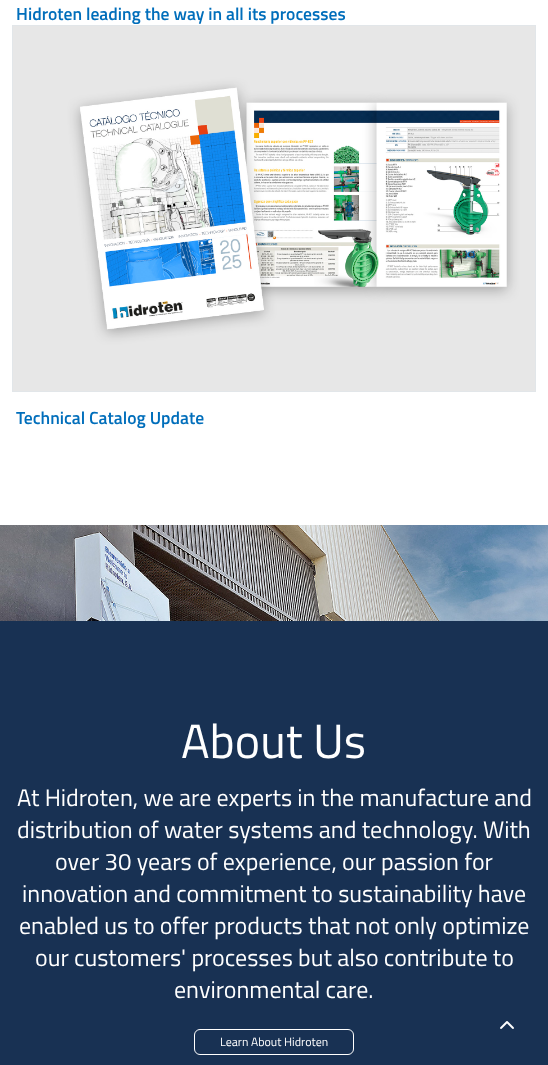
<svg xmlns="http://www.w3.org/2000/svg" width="548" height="1065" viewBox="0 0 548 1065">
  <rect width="100%" height="100%" fill="rgb(255,255,255)"/>
  <text x="16" y="20" font-family="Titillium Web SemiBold" font-size="17.6" font-weight="600" fill="rgb(0,110,187)">Hidroten leading the way in all its processes</text>
  <rect x="12.5" y="25.5" width="523" height="366" fill="none" stroke="rgb(226,230,233)"/>
  <image x="13" y="26" width="522" height="365" href="pic1.png"/>
  <text x="16" y="424" font-family="Titillium Web SemiBold" font-size="17.6" font-weight="600" fill="rgb(0,110,187)">Technical Catalog Update</text>
  <rect x="0" y="621" width="548" height="444" fill="rgb(24,49,83)"/>
  <image x="0" y="525" width="548" height="96" href="pic2.png"/>
  <text x="181" y="758" font-family="Titillium Web" font-size="48" fill="rgb(255,255,255)">About Us</text>
  <g font-family="Titillium Web" font-size="24" fill="rgb(255,255,255)">
    <text>
      <tspan x="17" y="806">At Hidroten, we are experts in the manufacture and</tspan>
      <tspan x="17" y="838">distribution of water systems and technology. With</tspan>
    </text>
    <text x="55" y="870">over 30 years of experience, our passion for</text>
    <text x="22" y="902">innovation and commitment to sustainability have</text>
    <text x="19" y="934">enabled us to offer products that not only optimize</text>
    <text x="35" y="966">our customers' processes but also contribute to</text>
    <text x="174" y="998">environmental care.</text>
  </g>
  <rect x="194.5" y="1029.5" width="159" height="25" rx="5.5" fill="none" stroke="rgb(255,255,255)"/>
  <text x="220" y="1046" font-family="Titillium Web" font-size="12" fill="rgb(255,255,255)">Learn About Hidroten</text>
  <image x="500" y="1021" width="14" height="8" href="pic3.png"/>
</svg>
